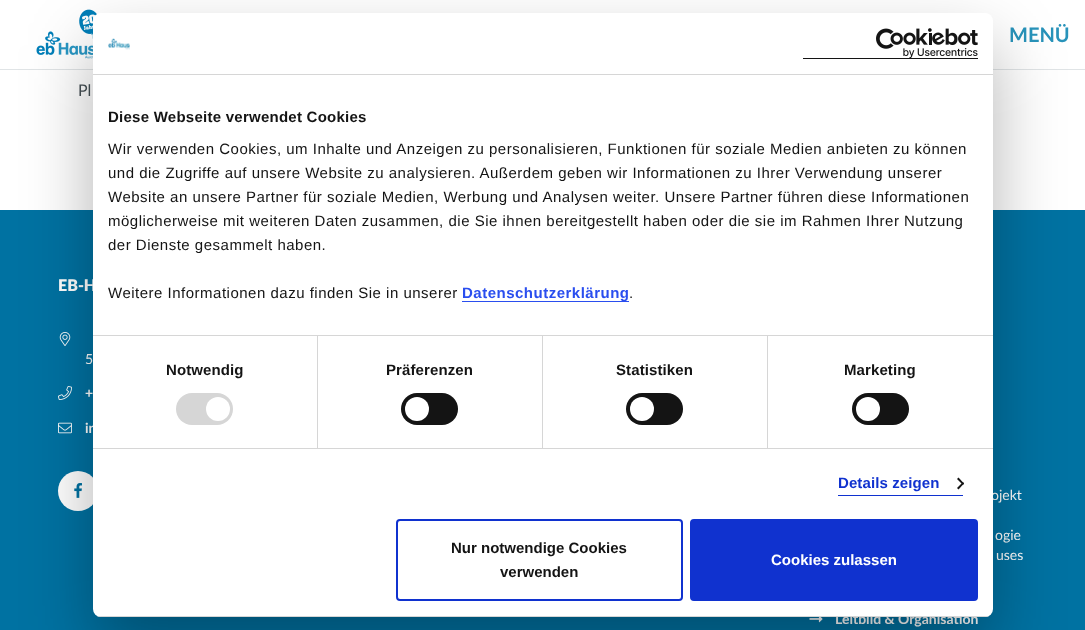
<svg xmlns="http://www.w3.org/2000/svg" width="1085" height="630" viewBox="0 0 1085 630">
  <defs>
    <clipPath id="clip1"><rect x="93" y="13" width="900" height="604" rx="8"/></clipPath>
  </defs>
  <rect width="100%" height="100%" fill="rgb(255,255,255)"/>
  <rect x="0" y="69" width="1085" height="1" fill="rgb(224,228,230)"/>
  <image x="36" y="9" width="62" height="50" href="pic1.png"/>
  <text x="1009" y="42" font-family="Lato" font-size="20" font-weight="bold" fill="rgb(40,147,186)">MENÜ</text>
  <text x="78" y="96" font-family="Lato" font-size="16" fill="rgb(70,80,85)">Pl</text>
  <rect x="0" y="210" width="1085" height="420" fill="rgb(0,114,162)"/>
  <text x="58" y="291" font-family="Lato" font-size="16" font-weight="900" fill="rgb(255,255,255)">EB-H</text>
  <image x="59" y="332" width="12" height="14" href="pic2.png"/>
  <text x="85" y="364" font-family="Lato" font-size="14" fill="rgb(255,255,255)">5</text>
  <image x="58" y="386" width="14" height="14" href="pic3.png"/>
  <text x="85" y="398" font-family="Lato" font-size="14" font-weight="bold" fill="rgb(255,255,255)">+</text>
  <image x="58" y="422" width="14" height="12" href="pic4.png"/>
  <text x="85" y="433" font-family="Lato" font-size="14" font-weight="bold" fill="rgb(255,255,255)">in</text>
  <circle cx="78" cy="491" r="20" fill="rgb(255,255,255)"/>
  <image x="74" y="483" width="8" height="15" href="pic5.png"/>
  <g font-family="Lato" font-size="14" fill="rgb(255,255,255)">
    <text x="991" y="500">ojekt</text>
    <text x="995" y="540">ogie</text>
    <text x="996" y="560">uses</text>
  </g>
  <image x="809" y="617" width="14" height="6" href="pic6.png"/>
  <text x="835" y="624" font-family="Lato" font-size="14" font-weight="bold" fill="rgb(255,255,255)">Leitbild &amp; Organisation</text>
  <rect x="93" y="45" width="900" height="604" rx="8" fill="rgba(0,0,0,0.3)" filter="blur(34px)"/>
  <rect x="93" y="13" width="900" height="604" rx="8" fill="rgb(255,255,255)"/>
  <rect x="93" y="74" width="900" height="1" fill="rgb(214,214,214)"/>
  <image x="108" y="38" width="22" height="12" href="pic7.png"/>
  <rect x="803" y="58" width="175" height="1" fill="rgb(20,20,20)"/>
  <image x="876" y="28" width="102" height="30" href="pic8.png"/>
  <rect x="93" y="335" width="900" height="1" fill="rgb(214,214,214)"/>
  <text x="108" y="122" font-family="Liberation Sans" font-size="15" font-weight="bold" letter-spacing="0.25" fill="rgb(20,20,20)">Diese Webseite verwendet Cookies</text>
  <g font-family="Liberation Sans" font-size="15" letter-spacing="0.5" fill="rgb(20,20,20)">
    <text>
      <tspan x="108" y="154">Wir verwenden Cookies, um Inhalte und Anzeigen zu personalisieren, Funktionen für soziale Medien anbieten zu können</tspan>
      <tspan x="108" y="178">und die Zugriffe auf unsere Website zu analysieren. Außerdem geben wir Informationen zu Ihrer Verwendung unserer</tspan>
      <tspan x="108" y="202">Website an unsere Partner für soziale Medien, Werbung und Analysen weiter. Unsere Partner führen diese Informationen</tspan>
      <tspan x="108" y="226">möglicherweise mit weiteren Daten zusammen, die Sie ihnen bereitgestellt haben oder die sie im Rahmen Ihrer Nutzung</tspan>
      <tspan x="108" y="250">der Dienste gesammelt haben.</tspan>
    </text>
    <text x="108" y="298">Weitere Informationen dazu finden Sie in unserer</text>
  </g>
  <rect x="462" y="301" width="167" height="1" fill="rgb(42,78,239)"/>
  <text x="462" y="298" font-family="Liberation Sans" font-size="15" font-weight="bold" letter-spacing="0.5" fill="rgb(42,78,239)">Datenschutzerklärung</text>
  <text x="629" y="298" font-family="Liberation Sans" font-size="15" letter-spacing="0.5" fill="rgb(20,20,20)">.</text>
  <rect x="93" y="448" width="900" height="1" fill="rgb(214,214,214)"/>
  <rect x="317" y="336" width="1" height="112" fill="rgb(214,214,214)"/>
  <text x="166" y="375" font-family="Liberation Sans" font-size="15" font-weight="bold" letter-spacing="0.1" fill="rgb(20,20,20)">Notwendig</text>
  <rect x="176" y="393" width="57" height="32" rx="16" fill="rgb(214,214,214)"/>
  <circle cx="218" cy="409" r="12" fill="rgb(255,255,255)"/>
  <rect x="542" y="336" width="1" height="112" fill="rgb(214,214,214)"/>
  <text x="386" y="375" font-family="Liberation Sans" font-size="15" font-weight="bold" letter-spacing="0.1" fill="rgb(20,20,20)">Präferenzen</text>
  <rect x="401" y="393" width="57" height="32" rx="16" fill="rgb(20,20,20)"/>
  <circle cx="417" cy="409" r="12" fill="rgb(255,255,255)"/>
  <rect x="767" y="336" width="1" height="112" fill="rgb(214,214,214)"/>
  <text x="616" y="375" font-family="Liberation Sans" font-size="15" font-weight="bold" letter-spacing="0.1" fill="rgb(20,20,20)">Statistiken</text>
  <rect x="626" y="393" width="57" height="32" rx="16" fill="rgb(20,20,20)"/>
  <circle cx="642" cy="409" r="12" fill="rgb(255,255,255)"/>
  <text x="844" y="375" font-family="Liberation Sans" font-size="15" font-weight="bold" letter-spacing="0.1" fill="rgb(20,20,20)">Marketing</text>
  <rect x="852" y="393" width="57" height="32" rx="16" fill="rgb(20,20,20)"/>
  <circle cx="868" cy="409" r="12" fill="rgb(255,255,255)"/>
  <rect x="838" y="495" width="125" height="1" fill="rgb(16,50,207)"/>
  <text x="838" y="488" font-family="Liberation Sans" font-size="15" font-weight="bold" letter-spacing="0.1" fill="rgb(16,50,207)">Details zeigen</text>
  <path d="M958.5 477.5L964 483.5L963 485L957 479Z" fill="rgb(20,20,20)"/>
  <path d="M963 482L964 483.5L958.5 489.5L957 488Z" fill="rgb(20,20,20)"/>
  <g clip-path="url(#clip1)">
    <rect x="93" y="616" width="900" height="1" fill="rgb(214,214,214)"/>
  </g>
  <rect x="397" y="520" width="285" height="80" rx="3" fill="none" stroke="rgb(16,50,207)" stroke-width="2"/>
  <g font-family="Liberation Sans" font-size="15" font-weight="bold" fill="rgb(20,20,20)">
    <text x="451" y="553">Nur notwendige Cookies</text>
    <text x="500" y="577">verwenden</text>
  </g>
  <rect x="691" y="520" width="286" height="80" rx="3" fill="rgb(16,50,207)" stroke="rgb(16,50,207)" stroke-width="2"/>
  <text x="771" y="565" font-family="Liberation Sans" font-size="15" font-weight="bold" fill="rgb(255,255,255)">Cookies zulassen</text>
</svg>
